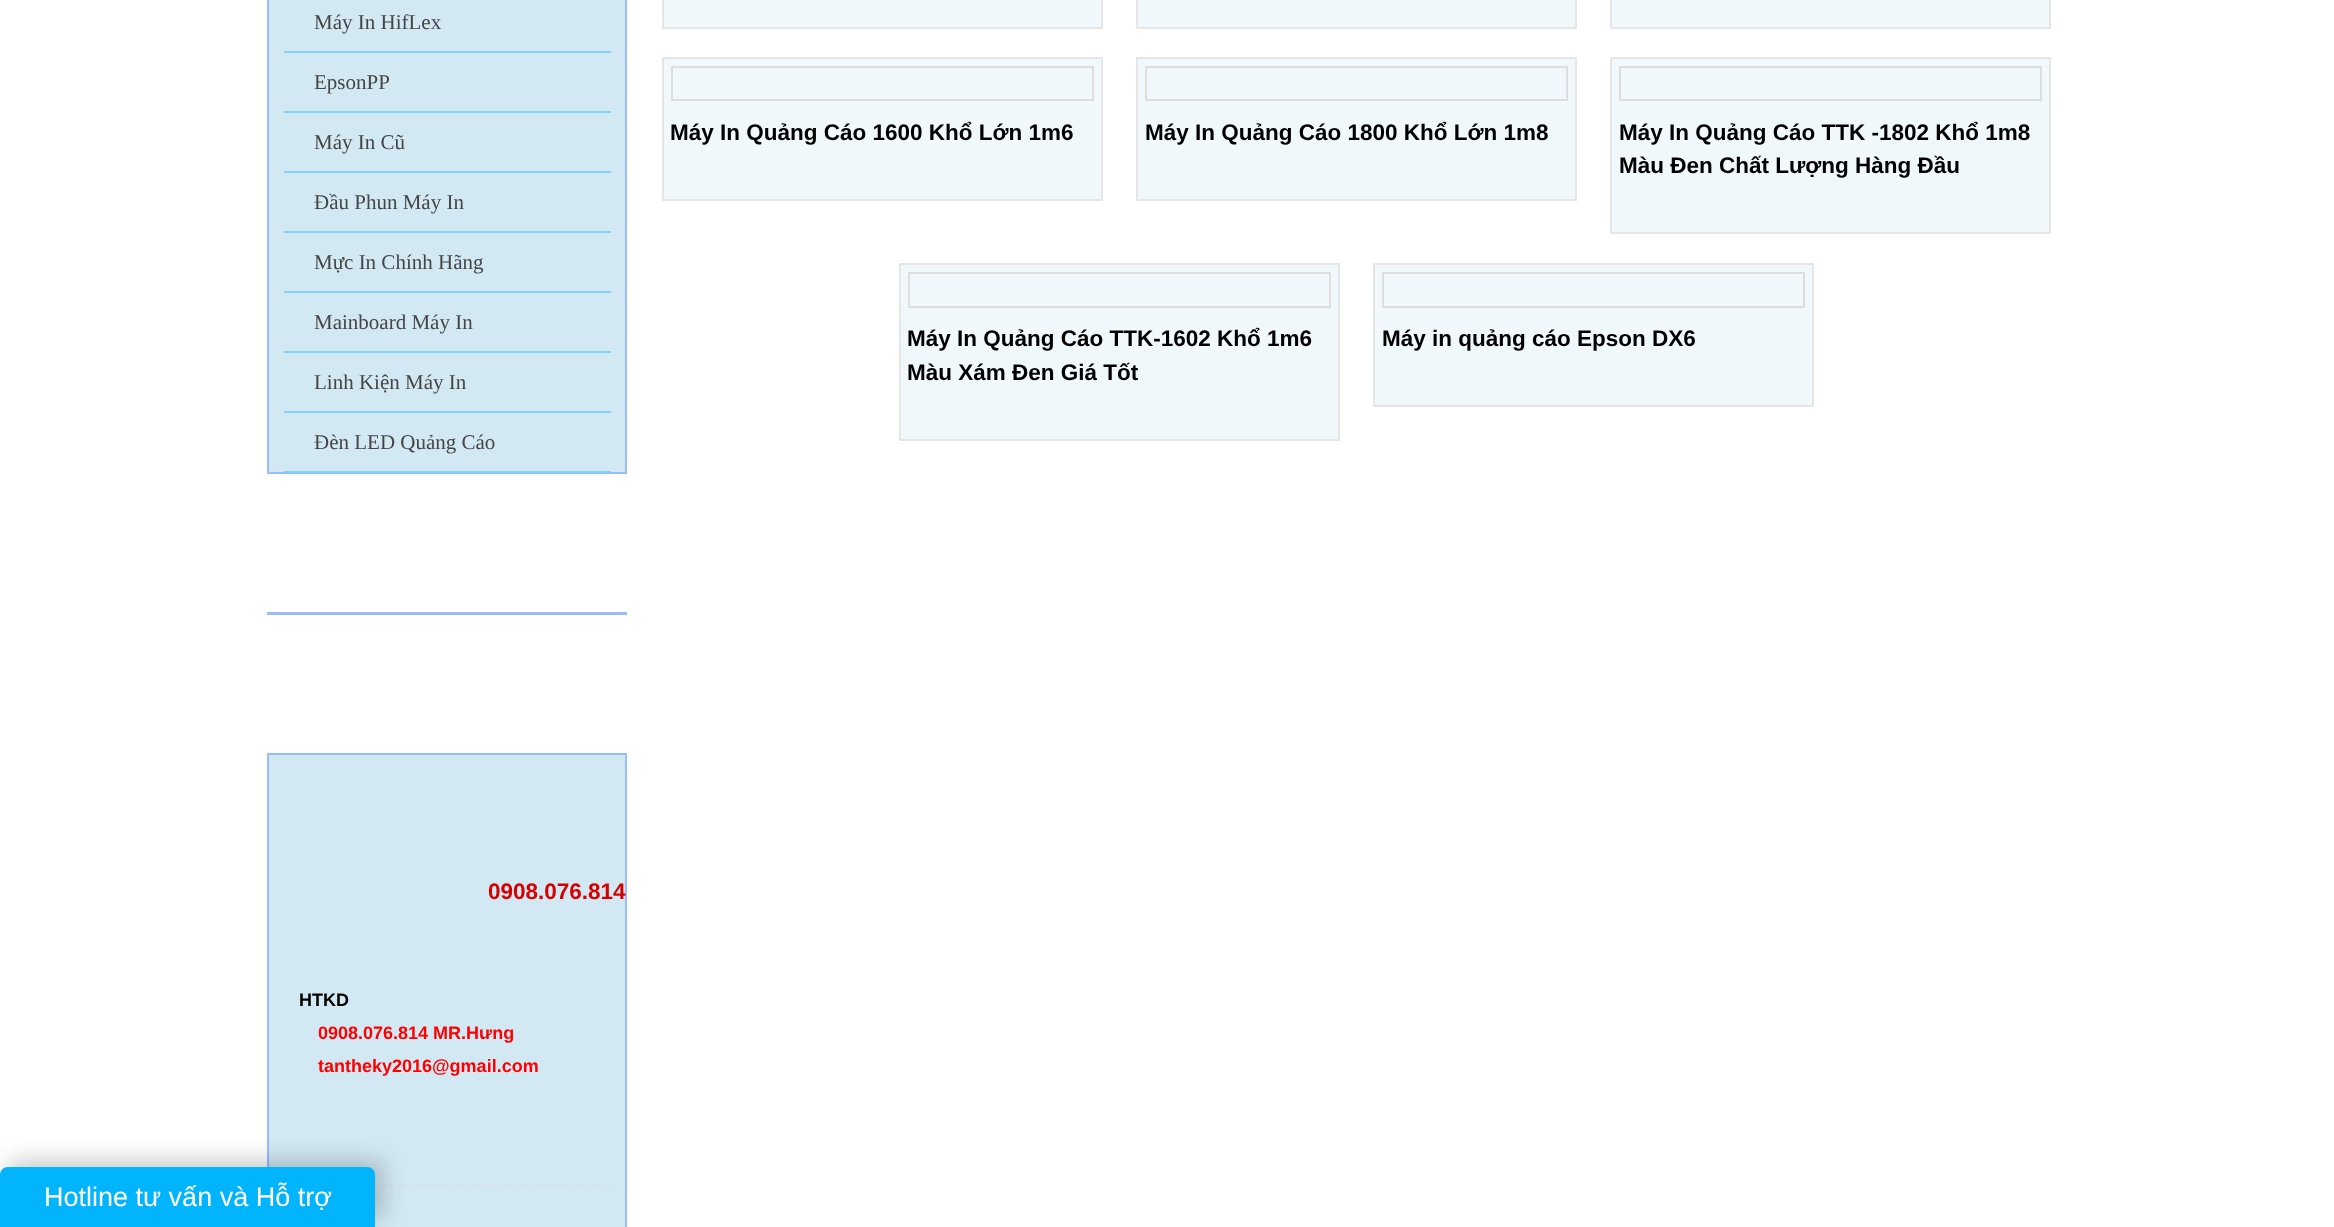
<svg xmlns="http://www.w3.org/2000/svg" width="2334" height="1227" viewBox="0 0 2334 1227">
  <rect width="100%" height="100%" fill="rgb(255,255,255)"/>
  <rect x="268" y="-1" width="358" height="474" fill="rgb(210,233,243)" stroke="rgb(153,187,255)" stroke-width="2"/>
  <rect x="284" y="51" width="327" height="2" fill="rgb(126,211,248)"/>
  <text x="314" y="29" font-family="Liberation Serif" font-size="21" fill="rgb(69,69,69)">Máy In HifLex</text>
  <rect x="284" y="111" width="327" height="2" fill="rgb(126,211,248)"/>
  <text x="314" y="89" font-family="Liberation Serif" font-size="21" fill="rgb(69,69,69)">EpsonPP</text>
  <rect x="284" y="171" width="327" height="2" fill="rgb(126,211,248)"/>
  <text x="314" y="149" font-family="Liberation Serif" font-size="21" fill="rgb(69,69,69)">Máy In Cũ</text>
  <rect x="284" y="231" width="327" height="2" fill="rgb(126,211,248)"/>
  <text x="314" y="209" font-family="Liberation Serif" font-size="21" fill="rgb(69,69,69)">Đầu Phun Máy In</text>
  <rect x="284" y="291" width="327" height="2" fill="rgb(126,211,248)"/>
  <text x="314" y="269" font-family="Liberation Serif" font-size="21" fill="rgb(69,69,69)">Mực In Chính Hãng</text>
  <rect x="284" y="351" width="327" height="2" fill="rgb(126,211,248)"/>
  <text x="314" y="329" font-family="Liberation Serif" font-size="21" fill="rgb(69,69,69)">Mainboard Máy In</text>
  <rect x="284" y="411" width="327" height="2" fill="rgb(126,211,248)"/>
  <text x="314" y="389" font-family="Liberation Serif" font-size="21" fill="rgb(69,69,69)">Linh Kiện Máy In</text>
  <rect x="284" y="471" width="327" height="2" fill="rgb(126,211,248)"/>
  <text x="314" y="449" font-family="Liberation Serif" font-size="21" fill="rgb(69,69,69)">Đèn LED Quảng Cáo</text>
  <rect x="267" y="612" width="360" height="3" fill="rgb(153,187,255)"/>
  <rect x="268" y="754" width="358" height="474" fill="rgb(210,233,243)" stroke="rgb(153,187,255)" stroke-width="2"/>
  <text x="488" y="899" font-family="Liberation Sans" font-size="22.5" font-weight="bold" fill="rgb(214,0,0)">0908.076.814</text>
  <path d="M283.5 1186H610.5" fill="none" stroke="rgb(221,221,221)" stroke-width="1.5" stroke-dasharray="4.5 3"/>
  <text x="299" y="1006" font-family="Liberation Sans" font-size="18" font-weight="bold" fill="rgb(0,0,0)">HTKD</text>
  <g font-family="Liberation Sans" font-size="18" font-weight="bold" fill="rgb(255,0,0)">
    <text>
      <tspan x="318" y="1039">0908.076.814 MR.Hưng</tspan>
      <tspan x="318" y="1072">tantheky2016@gmail.com</tspan>
    </text>
  </g>
  <rect x="663" y="-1" width="439" height="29" fill="rgb(241,248,251)" stroke="rgb(230,230,230)" stroke-width="2"/>
  <rect x="1137" y="-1" width="439" height="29" fill="rgb(241,248,251)" stroke="rgb(230,230,230)" stroke-width="2"/>
  <rect x="1611" y="-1" width="439" height="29" fill="rgb(241,248,251)" stroke="rgb(230,230,230)" stroke-width="2"/>
  <rect x="663" y="58" width="439" height="142" fill="rgb(241,248,251)" stroke="rgb(230,230,230)" stroke-width="2"/>
  <rect x="672" y="67" width="421" height="33" fill="none" stroke="rgb(221,221,221)" stroke-width="2"/>
  <text x="670" y="140" font-family="Liberation Sans" font-size="22.5" font-weight="bold" fill="rgb(0,0,0)">Máy In Quảng Cáo 1600 Khổ Lớn 1m6</text>
  <rect x="1137" y="58" width="439" height="142" fill="rgb(241,248,251)" stroke="rgb(230,230,230)" stroke-width="2"/>
  <rect x="1146" y="67" width="421" height="33" fill="none" stroke="rgb(221,221,221)" stroke-width="2"/>
  <text x="1145" y="140" font-family="Liberation Sans" font-size="22.5" font-weight="bold" fill="rgb(0,0,0)">Máy In Quảng Cáo 1800 Khổ Lớn 1m8</text>
  <rect x="1611" y="58" width="439" height="175" fill="rgb(241,248,251)" stroke="rgb(230,230,230)" stroke-width="2"/>
  <rect x="1620" y="67" width="421" height="33" fill="none" stroke="rgb(221,221,221)" stroke-width="2"/>
  <g font-family="Liberation Sans" font-size="22.5" font-weight="bold" fill="rgb(0,0,0)">
    <text>
      <tspan x="1619" y="140">Máy In Quảng Cáo TTK -1802 Khổ 1m8</tspan>
      <tspan x="1619" y="173">Màu Đen Chất Lượng Hàng Đầu</tspan>
    </text>
  </g>
  <rect x="900" y="264" width="439" height="176" fill="rgb(241,248,251)" stroke="rgb(230,230,230)" stroke-width="2"/>
  <rect x="909" y="273" width="421" height="34" fill="none" stroke="rgb(221,221,221)" stroke-width="2"/>
  <g font-family="Liberation Sans" font-size="22.5" font-weight="bold" fill="rgb(0,0,0)">
    <text>
      <tspan x="907" y="346">Máy In Quảng Cáo TTK-1602 Khổ 1m6</tspan>
      <tspan x="907" y="380">Màu Xám Đen Giá Tốt</tspan>
    </text>
  </g>
  <rect x="1374" y="264" width="439" height="142" fill="rgb(241,248,251)" stroke="rgb(230,230,230)" stroke-width="2"/>
  <rect x="1383" y="273" width="421" height="34" fill="none" stroke="rgb(221,221,221)" stroke-width="2"/>
  <text x="1382" y="346" font-family="Liberation Sans" font-size="22.5" font-weight="bold" fill="rgb(0,0,0)">Máy in quảng cáo Epson DX6</text>
  <rect x="9" y="1160" width="375" height="60" rx="8" fill="rgba(0,0,0,0.2)" filter="blur(11px)"/>
  <path d="M8 1167H367C371.5 1167 375 1170.5 375 1175V1227H0V1175C0 1170.5 3.5 1167 8 1167Z" fill="rgb(2,180,252)"/>
  <text x="44" y="1206" font-family="Liberation Sans" font-size="27" fill="rgb(255,255,255)">Hotline tư vấn và Hỗ trợ</text>
</svg>
